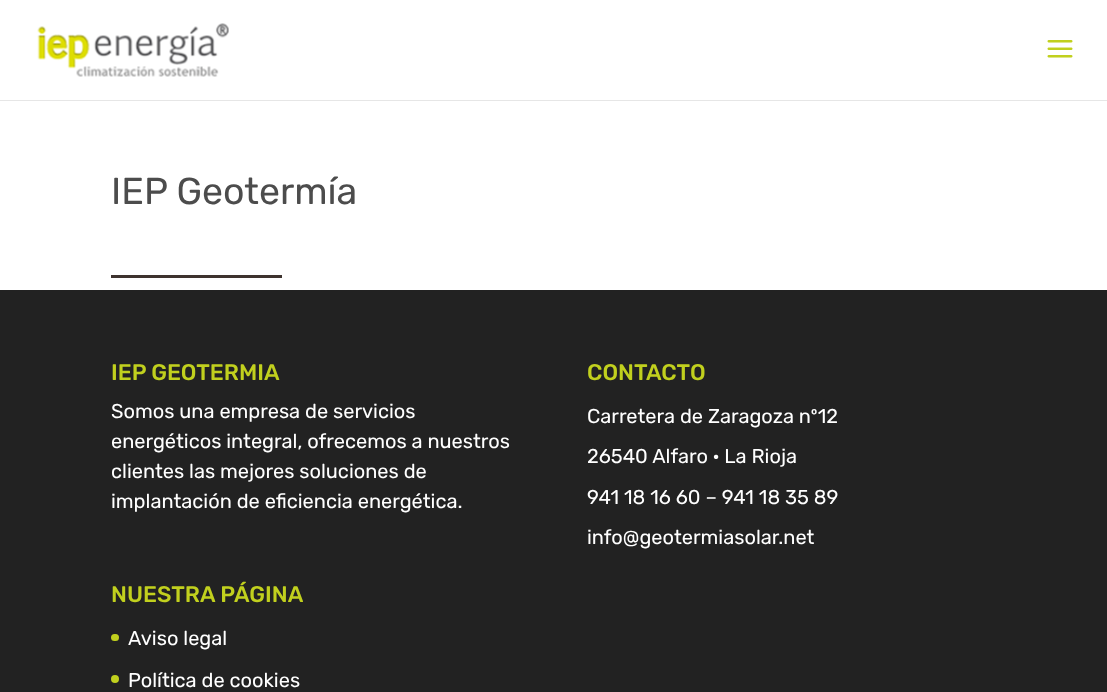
<svg xmlns="http://www.w3.org/2000/svg" width="1107" height="692" viewBox="0 0 1107 692">
  <rect width="100%" height="100%" fill="rgb(255,255,255)"/>
  <path d="M0 100V101H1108V1V100Z" fill="rgb(230,230,230)"/>
  <image x="37" y="23" width="192" height="54" href="pic1.png"/>
  <image x="1047" y="40" width="26" height="18" href="pic2.png"/>
  <text x="111" y="204" font-family="Rubik" font-size="37.5" fill="rgb(76,76,76)">IEP Geotermía</text>
  <rect x="111" y="275" width="171" height="3" fill="rgb(62,51,47)"/>
  <rect x="0" y="290" width="1107" height="402" fill="rgb(34,34,34)"/>
  <text x="111" y="380" font-family="Rubik" font-size="22.5" font-weight="500" fill="rgb(193,208,30)">IEP GEOTERMIA</text>
  <g font-family="Rubik" font-size="20" fill="rgb(255,255,255)">
    <text>
      <tspan x="111" y="418">Somos una empresa de servicios</tspan>
      <tspan x="111" y="448">energéticos integral, ofrecemos a nuestros</tspan>
      <tspan x="111" y="478">clientes las mejores soluciones de</tspan>
      <tspan x="111" y="508">implantación de eficiencia energética.</tspan>
    </text>
  </g>
  <text x="587" y="380" font-family="Rubik" font-size="22.5" font-weight="500" fill="rgb(193,208,30)">CONTACTO</text>
  <g font-family="Rubik" font-size="20" fill="rgb(255,255,255)">
    <text x="587" y="423">Carretera de Zaragoza nº12</text>
    <text x="587" y="463">26540 Alfaro · La Rioja</text>
    <text x="587" y="504">941 18 16 60 – 941 18 35 89</text>
    <text x="587" y="544">info@geotermiasolar.net</text>
  </g>
  <text x="111" y="602" font-family="Rubik" font-size="22.5" font-weight="500" fill="rgb(193,208,30)">NUESTRA PÁGINA</text>
  <rect x="111" y="634" width="8" height="7" rx="3.5" fill="rgb(193,208,30)"/>
  <text x="128" y="645" font-family="Rubik" font-size="20" fill="rgb(255,255,255)">Aviso legal</text>
  <circle cx="115" cy="679" r="4" fill="rgb(193,208,30)"/>
  <text x="128" y="687" font-family="Rubik" font-size="20" fill="rgb(255,255,255)">Política de cookies</text>
</svg>
